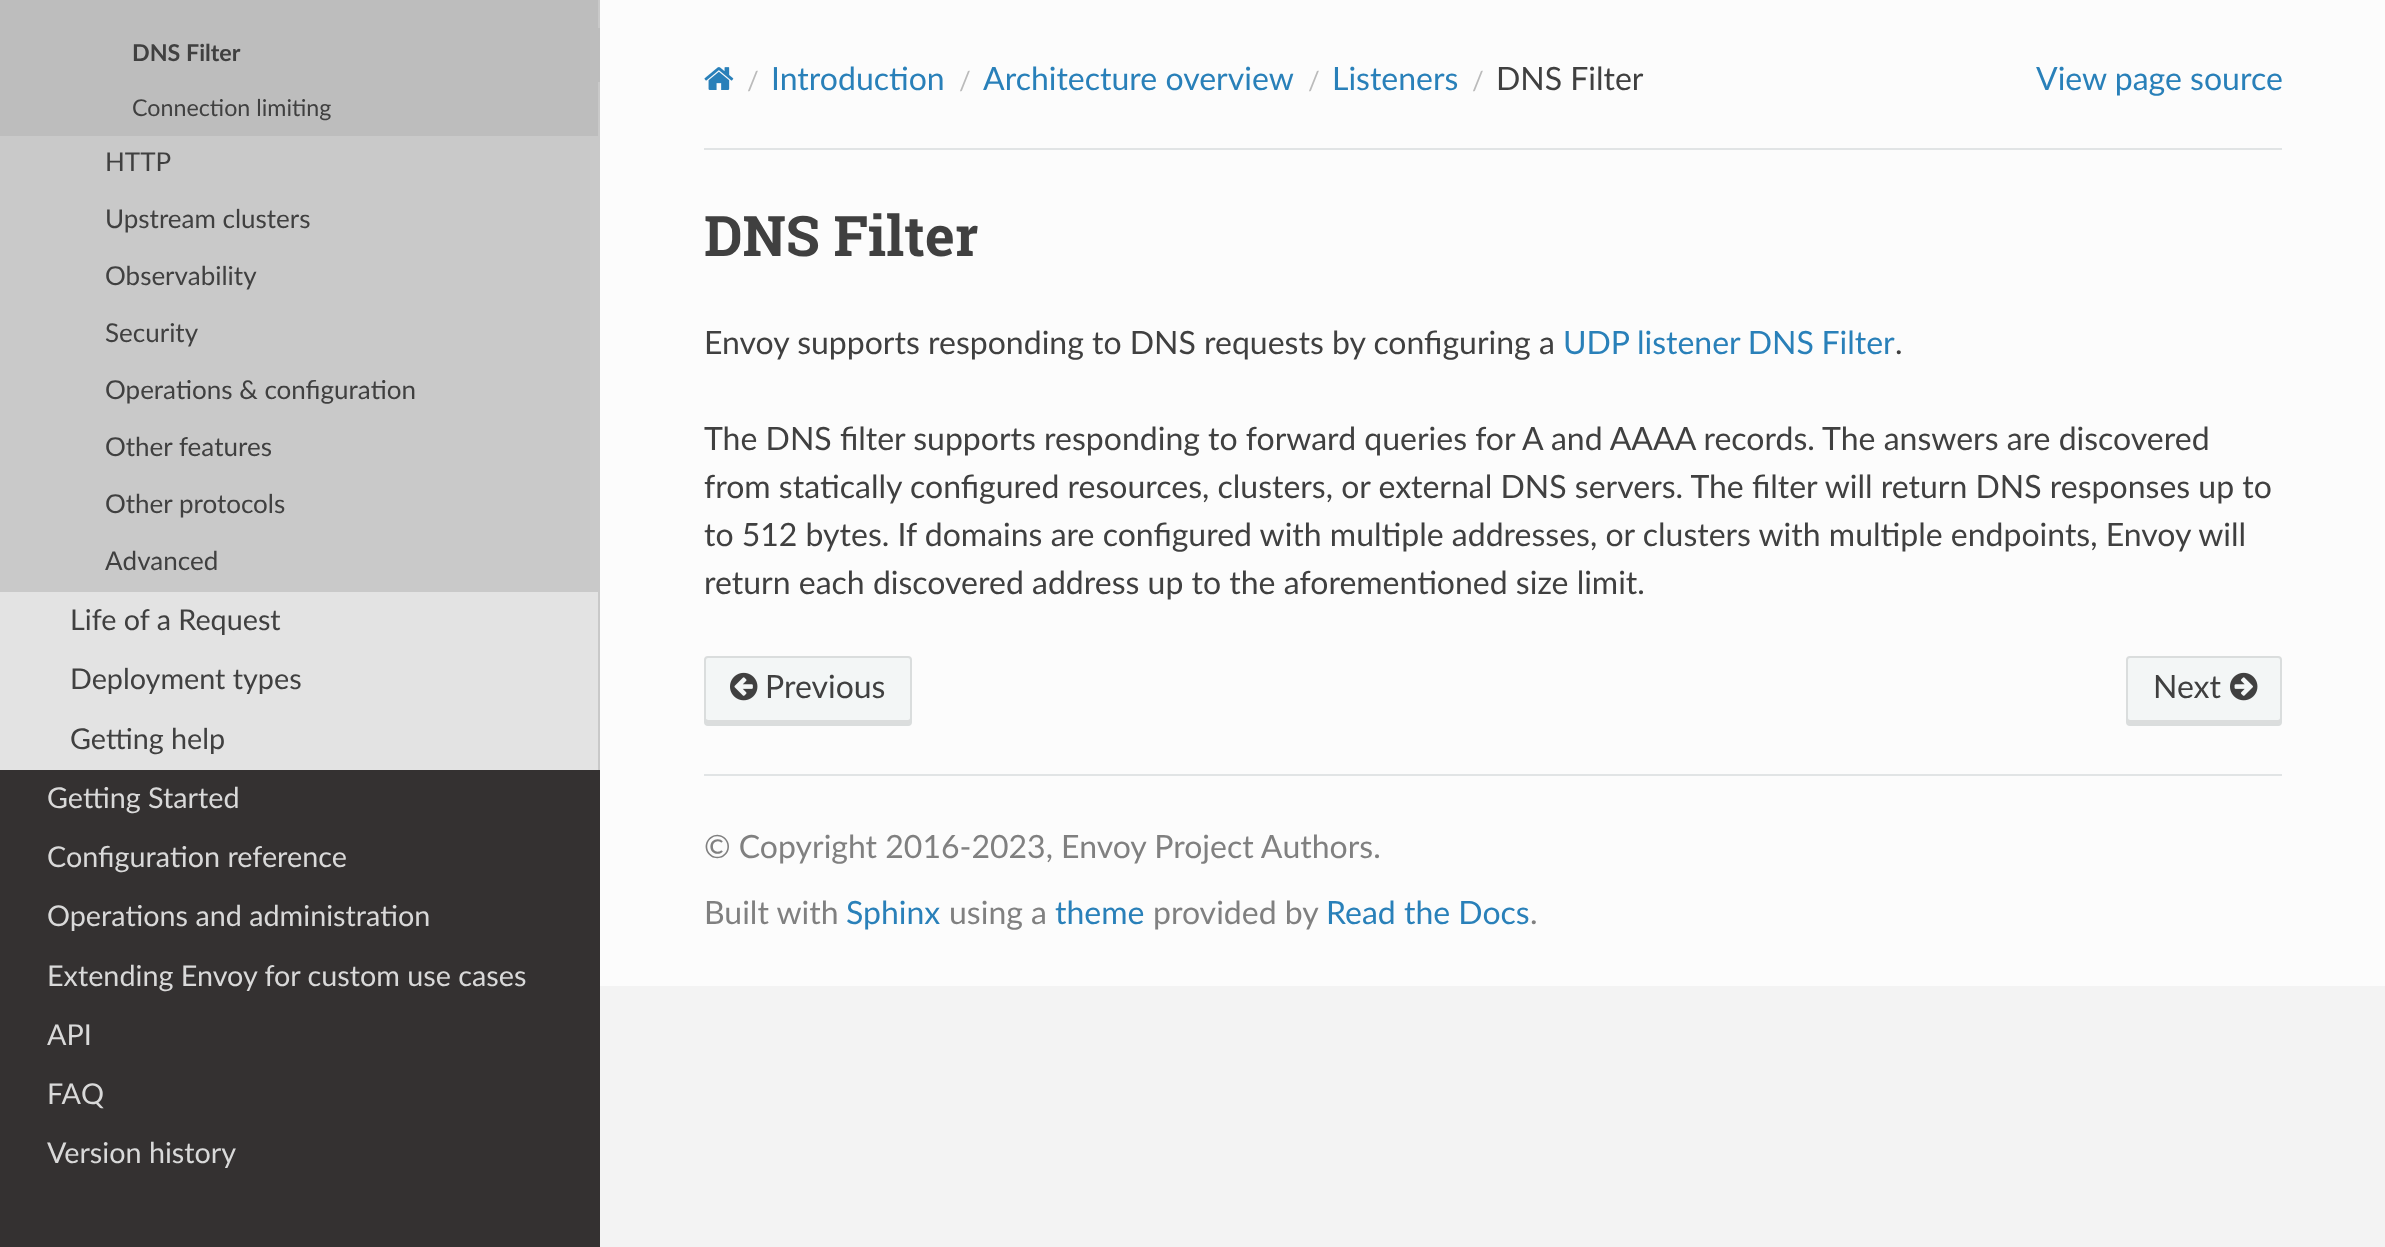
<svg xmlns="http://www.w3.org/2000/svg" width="2385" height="1247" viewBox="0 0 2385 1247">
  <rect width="100%" height="100%" fill="rgb(243,243,243)"/>
  <rect x="0" y="770" width="600" height="477" fill="rgb(52,49,49)"/>
  <rect x="0" y="592" width="598" height="178" fill="rgb(227,227,227)"/>
  <rect x="0" y="0" width="598" height="28" fill="rgb(189,189,189)"/>
  <rect x="598" y="0" width="2" height="28" fill="rgb(201,201,201)"/>
  <rect x="0" y="28" width="600" height="54" fill="rgb(189,189,189)"/>
  <text x="132" y="61" font-family="Lato" font-size="23.25" font-weight="bold" fill="rgb(64,64,64)">DNS Filter</text>
  <rect x="0" y="82" width="598" height="54" fill="rgb(189,189,189)"/>
  <rect x="598" y="82" width="2" height="54" fill="rgb(201,201,201)"/>
  <text x="132" y="116" font-family="Lato" font-size="23.25" fill="rgb(64,64,64)">Connection limiting</text>
  <rect x="0" y="136" width="600" height="456" fill="rgb(201,201,201)"/>
  <g font-family="Lato" font-size="26" fill="rgb(64,64,64)">
    <text x="105" y="171">HTTP</text>
    <text x="105" y="228">Upstream clusters</text>
    <text x="105" y="285">Observability</text>
    <text x="105" y="342">Security</text>
    <text x="105" y="399">Operations &amp; configuration</text>
    <text x="105" y="456">Other features</text>
    <text x="105" y="513">Other protocols</text>
    <text x="105" y="570">Advanced</text>
  </g>
  <rect x="598" y="592" width="2" height="178" fill="rgb(201,201,201)"/>
  <g font-family="Lato" font-size="28.75" fill="rgb(64,64,64)">
    <text x="70" y="630">Life of a Request</text>
    <text x="70" y="689">Deployment types</text>
    <text x="70" y="749">Getting help</text>
  </g>
  <g font-family="Lato" font-size="28.75" fill="rgb(217,217,217)">
    <text x="47" y="808">Getting Started</text>
    <text x="47" y="867">Configuration reference</text>
    <text x="47" y="926">Operations and administration</text>
    <text x="47" y="986">Extending Envoy for custom use cases</text>
    <text x="47" y="1045">API</text>
    <text x="47" y="1104">FAQ</text>
    <text x="47" y="1163">Version history</text>
  </g>
  <rect x="600" y="0" width="1785" height="986" fill="rgb(252,252,252)"/>
  <image x="704" y="67" width="30" height="23" href="pic1.png"/>
  <text x="747" y="90" font-family="Lato" font-size="26" fill="rgb(187,187,187)">/</text>
  <text x="771" y="90" font-family="Lato" font-size="32" fill="rgb(41,128,185)">Introduction</text>
  <text x="959" y="90" font-family="Lato" font-size="26" fill="rgb(187,187,187)">/</text>
  <text x="983" y="90" font-family="Lato" font-size="32" fill="rgb(41,128,185)">Architecture overview</text>
  <text x="1308" y="90" font-family="Lato" font-size="26" fill="rgb(187,187,187)">/</text>
  <text x="1332" y="90" font-family="Lato" font-size="32" fill="rgb(41,128,185)">Listeners</text>
  <text x="1472" y="90" font-family="Lato" font-size="26" fill="rgb(187,187,187)">/</text>
  <text x="1496" y="90" font-family="Lato" font-size="32" fill="rgb(64,64,64)">DNS Filter</text>
  <text x="2036" y="90" font-family="Lato" font-size="32" fill="rgb(41,128,185)">View page source</text>
  <rect x="704" y="148" width="1578" height="2" fill="rgb(225,228,229)"/>
  <text x="704" y="256" font-family="Roboto Slab" font-size="56" font-weight="bold" fill="rgb(64,64,64)">DNS Filter</text>
  <text x="704" y="354" font-family="Lato" font-size="32" fill="rgb(64,64,64)">Envoy supports responding to DNS requests by configuring a</text>
  <text x="1563" y="354" word-spacing="-0.5" font-family="Lato" font-size="32" fill="rgb(41,128,185)">UDP listener DNS Filter</text>
  <g font-family="Lato" font-size="32" fill="rgb(64,64,64)">
    <text x="1895" y="354">.</text>
    <text>
      <tspan x="704" y="450">The DNS filter supports responding to forward queries for A and AAAA records. The answers are discovered</tspan>
      <tspan x="704" y="498">from statically configured resources, clusters, or external DNS servers. The filter will return DNS responses up to</tspan>
      <tspan x="704" y="546">to 512 bytes. If domains are configured with multiple addresses, or clusters with multiple endpoints, Envoy will</tspan>
      <tspan x="704" y="594">return each discovered address up to the aforementioned size limit.</tspan>
    </text>
  </g>
  <rect x="704" y="656" width="208" height="70" rx="4" fill="rgb(243,246,246)"/>
  <path d="M706 718V722C706 723 707 724 708 724H908C909 724 910 723 910 722V718C910 719 909 720 908 720H708L706 719Z" fill="rgb(219,221,221)"/>
  <rect x="705" y="657" width="206" height="68" rx="3" fill="none" stroke="rgba(0,0,0,0.1)" stroke-width="2"/>
  <image x="730" y="672" width="28" height="29" href="pic2.png"/>
  <text x="765" y="698" font-family="Lato" font-size="32" fill="rgb(64,64,64)">Previous</text>
  <rect x="2126" y="656" width="156" height="70" rx="4" fill="rgb(243,246,246)"/>
  <path d="M2128 718V722C2128 723 2129 724 2130 724H2278C2279 724 2280 723 2280 722V718C2280 719 2279 720 2278 720H2130C2129 720 2128 719 2128 718Z" fill="rgb(219,221,221)"/>
  <rect x="2127" y="657" width="154" height="68" rx="3" fill="none" stroke="rgba(0,0,0,0.1)" stroke-width="2"/>
  <text x="2153" y="698" font-family="Lato" font-size="32" fill="rgb(64,64,64)">Next</text>
  <image x="2230" y="672" width="28" height="29" href="pic3.png"/>
  <rect x="704" y="774" width="1578" height="2" fill="rgb(225,228,229)"/>
  <g font-family="Lato" font-size="32" fill="rgb(128,128,128)">
    <text x="704" y="858">© Copyright 2016-2023, Envoy Project Authors.</text>
    <text x="704" y="924">Built with</text>
  </g>
  <text x="846" y="924" font-family="Lato" font-size="32" fill="rgb(41,128,185)">Sphinx</text>
  <text x="949" y="924" font-family="Lato" font-size="32" fill="rgb(128,128,128)">using a</text>
  <text x="1055" y="924" font-family="Lato" font-size="32" fill="rgb(41,128,185)">theme</text>
  <text x="1153" y="924" font-family="Lato" font-size="32" fill="rgb(128,128,128)">provided by</text>
  <text x="1326" y="924" font-family="Lato" font-size="32" fill="rgb(41,128,185)">Read the Docs</text>
  <text x="1530" y="924" font-family="Lato" font-size="32" fill="rgb(128,128,128)">.</text>
</svg>
